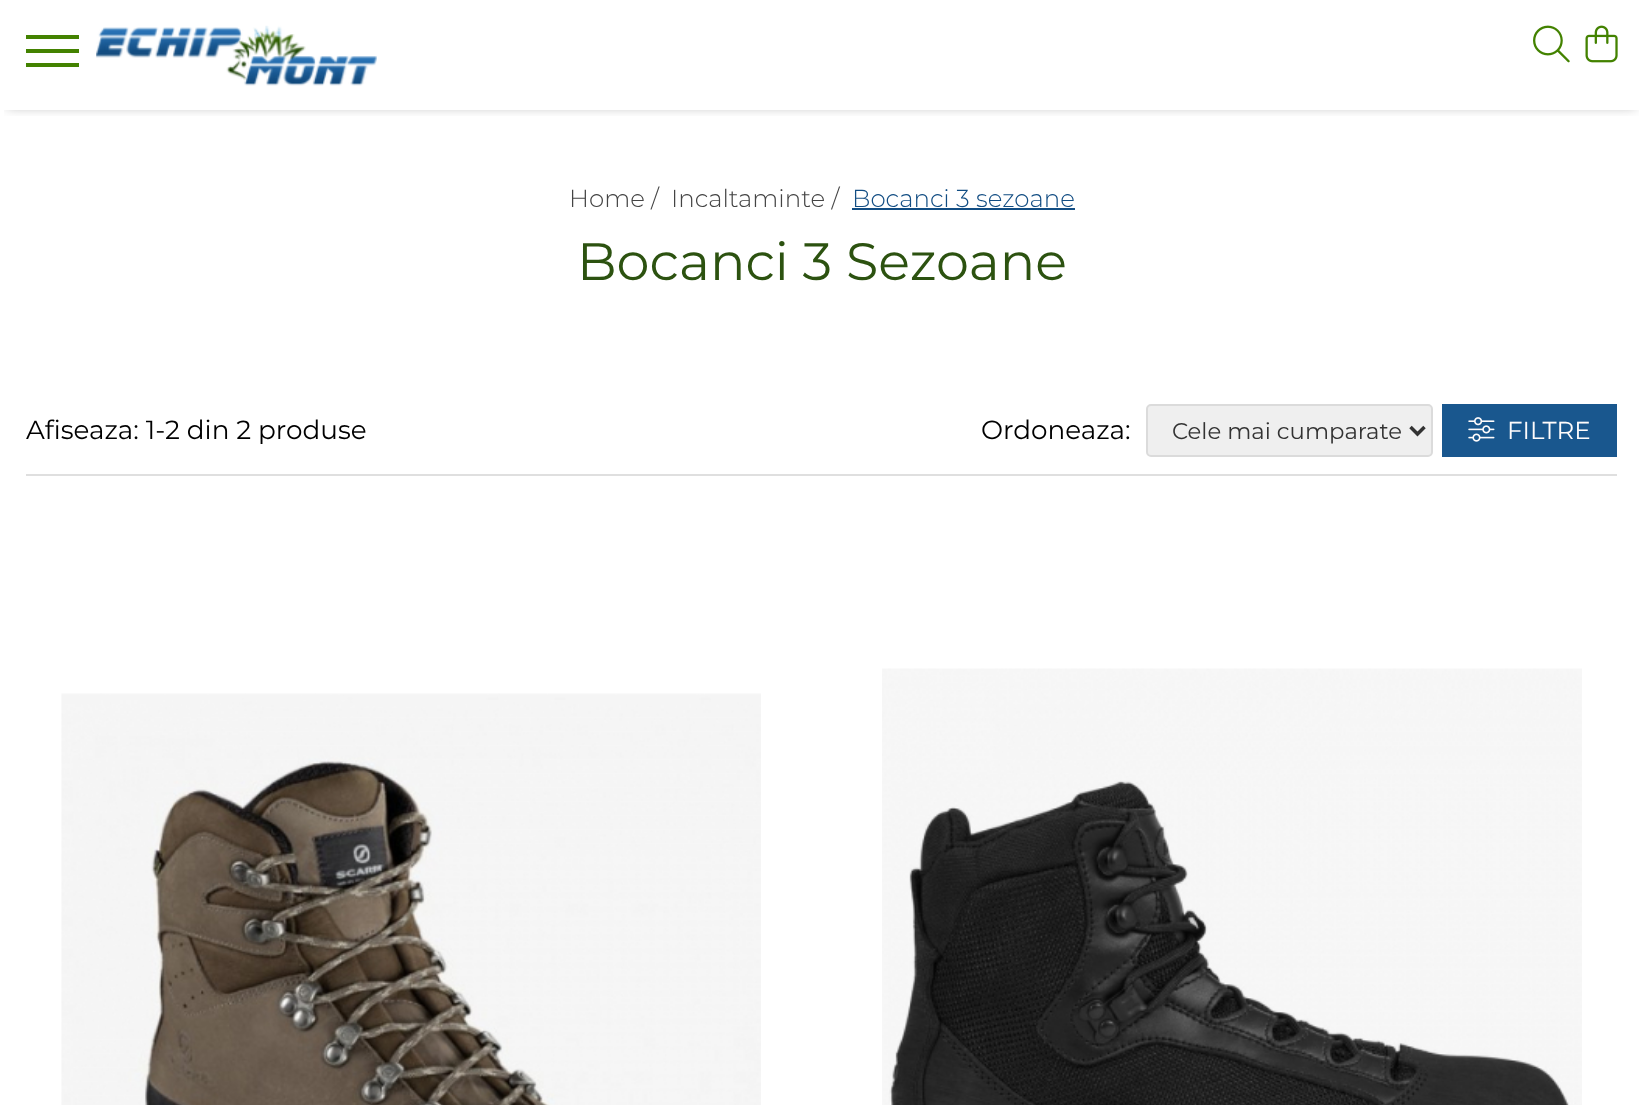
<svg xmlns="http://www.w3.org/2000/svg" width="1642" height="1105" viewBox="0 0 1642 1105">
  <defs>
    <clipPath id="clip1"><rect x="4" y="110" width="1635" height="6"/></clipPath>
  </defs>
  <rect width="100%" height="100%" fill="rgb(255,255,255)"/>
  <g clip-path="url(#clip1)">
    <rect x="7" y="11" width="1629" height="96" fill="rgba(0,0,0,0.3)" filter="blur(6px)"/>
  </g>
  <rect x="26" y="49" width="53" height="4" fill="rgb(67,130,0)"/>
  <rect x="26" y="35" width="53" height="4" fill="rgb(67,130,0)"/>
  <rect x="26" y="63" width="53" height="4" fill="rgb(67,130,0)"/>
  <image x="96" y="25" width="281" height="61" href="pic1.png"/>
  <image x="1533" y="25" width="37" height="38" href="pic2.png"/>
  <image x="1585" y="25" width="33" height="38" href="pic3.png"/>
  <g font-family="Montserrat" font-size="24.5" font-weight="300" fill="rgb(68,68,68)">
    <text x="569" y="207">Home /</text>
    <text x="671" y="207">Incaltaminte /</text>
  </g>
  <text x="852" y="207" font-family="Montserrat" font-size="24.5" font-weight="300" fill="rgb(18,77,131)">Bocanci 3 sezoane</text>
  <rect x="852" y="208" width="223" height="2" fill="rgb(18,77,131)"/>
  <text x="577" y="280" font-family="Montserrat" font-size="52.5" fill="rgb(44,82,16)">Bocanci 3 Sezoane</text>
  <rect x="26" y="474" width="1591" height="2" fill="rgb(223,223,223)"/>
  <g font-family="Montserrat" font-size="26.25" fill="rgb(0,0,0)">
    <text x="26" y="439">Afiseaza: 1-</text>
    <text x="165" y="439">2 din 2 produse</text>
    <text x="981" y="439">Ordoneaza:</text>
  </g>
  <rect x="1147" y="405" width="285" height="51" rx="4" fill="rgb(239,239,239)" stroke="rgb(219,219,219)" stroke-width="2"/>
  <path d="M1410.5 427L1417.5 434L1424.5 427" fill="none" stroke="rgb(51,51,51)" stroke-width="3.5"/>
  <text x="1172" y="439" font-family="Montserrat" font-size="22.75" fill="rgb(51,51,51)">Cele mai cumparate</text>
  <rect x="1442" y="404" width="175" height="53" fill="rgb(25,87,142)"/>
  <image x="1468" y="417" width="27" height="25" href="pic4.png"/>
  <text x="1507" y="439" font-family="Montserrat" font-size="24.5" fill="rgb(255,252,252)">FILTRE</text>
  <image x="61" y="693" width="700" height="412" href="pic5.png"/>
  <image x="882" y="668" width="700" height="437" href="pic6.png"/>
</svg>
